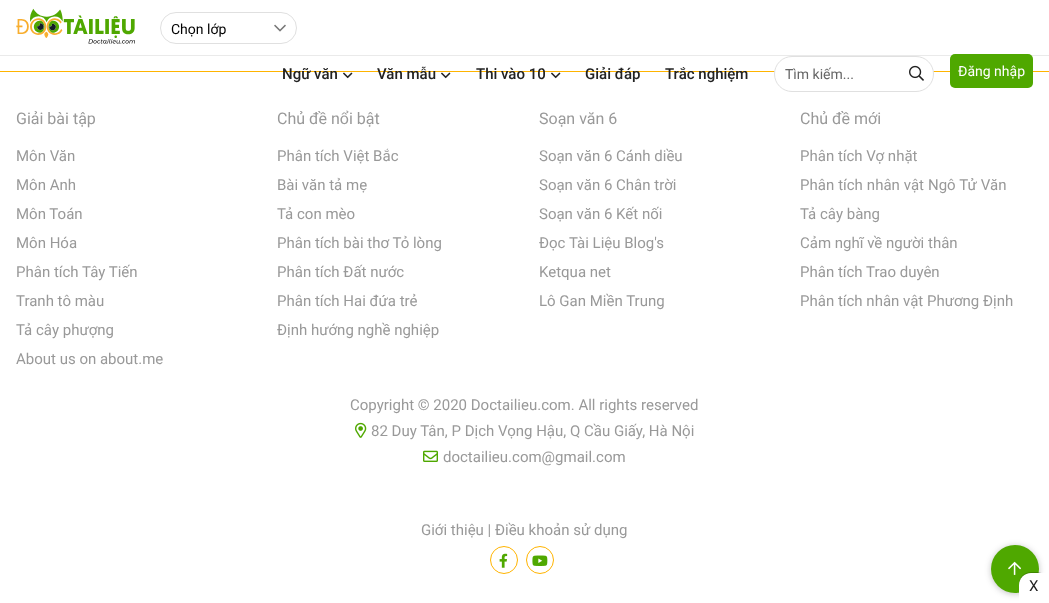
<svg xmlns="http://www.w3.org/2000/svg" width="1049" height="603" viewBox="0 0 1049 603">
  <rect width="100%" height="100%" fill="rgb(255,255,255)"/>
  <rect x="0" y="55" width="1049" height="1" fill="rgb(234,234,234)"/>
  <image x="16" y="8" width="119" height="36" href="pic1.png"/>
  <image x="274" y="24" width="12" height="8" href="pic2.png"/>
  <rect x="160.5" y="12.5" width="136" height="31" rx="15.5" fill="none" stroke="rgb(224,224,224)"/>
  <text x="171" y="34" font-family="Roboto" font-size="14" fill="rgb(0,0,0)">Chọn lớp</text>
  <rect x="0" y="71" width="1049" height="1" fill="rgb(255,180,0)"/>
  <text x="282" y="79" font-family="Roboto" font-size="15" font-weight="500" fill="rgb(34,34,34)">Ngữ văn</text>
  <image x="343" y="72" width="10" height="7" href="pic3.png"/>
  <text x="377" y="79" font-family="Roboto" font-size="15" font-weight="500" fill="rgb(34,34,34)">Văn mẫu</text>
  <image x="441" y="72" width="10" height="7" href="pic3.png"/>
  <text x="476" y="79" font-family="Roboto" font-size="15" font-weight="500" fill="rgb(34,34,34)">Thi vào 10</text>
  <image x="551" y="72" width="10" height="7" href="pic3.png"/>
  <g font-family="Roboto" font-size="15" font-weight="500" fill="rgb(34,34,34)">
    <text x="585" y="79">Giải đáp</text>
    <text x="665" y="79">Trắc nghiệm</text>
  </g>
  <rect x="774.5" y="56.5" width="159" height="35" rx="17.5" fill="rgb(255,255,255)" stroke="rgb(224,224,224)"/>
  <text x="785" y="79" font-family="Roboto" font-size="14" fill="rgb(102,102,102)">Tìm kiếm...</text>
  <image x="909" y="65" width="15" height="16" href="pic4.png"/>
  <rect x="950" y="54" width="83" height="34" rx="5" fill="rgb(79,168,0)"/>
  <text x="958" y="76" font-family="Roboto" font-size="14" fill="rgb(255,255,255)">Đăng nhập</text>
  <text x="16" y="124" font-family="Roboto" font-size="16" fill="rgb(153,153,153)">Giải bài tập</text>
  <g font-family="Roboto" font-size="15" fill="rgb(153,153,153)">
    <text>
      <tspan x="16" y="161">Môn Văn</tspan>
      <tspan x="16" y="190">Môn Anh</tspan>
      <tspan x="16" y="219">Môn Toán</tspan>
      <tspan x="16" y="248">Môn Hóa</tspan>
      <tspan x="16" y="277">Phân tích Tây Tiến</tspan>
      <tspan x="16" y="306">Tranh tô màu</tspan>
      <tspan x="16" y="335">Tả cây phượng</tspan>
      <tspan x="16" y="364">About us on about.me</tspan>
    </text>
  </g>
  <text x="277" y="124" font-family="Roboto" font-size="16" fill="rgb(153,153,153)">Chủ đề nổi bật</text>
  <g font-family="Roboto" font-size="15" fill="rgb(153,153,153)">
    <text>
      <tspan x="277" y="161">Phân tích Việt Bắc</tspan>
      <tspan x="277" y="190">Bài văn tả mẹ</tspan>
      <tspan x="277" y="219">Tả con mèo</tspan>
      <tspan x="277" y="248">Phân tích bài thơ Tỏ lòng</tspan>
      <tspan x="277" y="277">Phân tích Đất nước</tspan>
      <tspan x="277" y="306">Phân tích Hai đứa trẻ</tspan>
      <tspan x="277" y="335">Định hướng nghề nghiệp</tspan>
    </text>
  </g>
  <text x="539" y="124" font-family="Roboto" font-size="16" fill="rgb(153,153,153)">Soạn văn 6</text>
  <g font-family="Roboto" font-size="15" fill="rgb(153,153,153)">
    <text>
      <tspan x="539" y="161">Soạn văn 6 Cánh diều</tspan>
      <tspan x="539" y="190">Soạn văn 6 Chân trời</tspan>
      <tspan x="539" y="219">Soạn văn 6 Kết nối</tspan>
      <tspan x="539" y="248">Đọc Tài Liệu Blog's</tspan>
      <tspan x="539" y="277">Ketqua net</tspan>
      <tspan x="539" y="306">Lô Gan Miền Trung</tspan>
    </text>
  </g>
  <text x="800" y="124" font-family="Roboto" font-size="16" fill="rgb(153,153,153)">Chủ đề mới</text>
  <g font-family="Roboto" font-size="15" fill="rgb(153,153,153)">
    <text>
      <tspan x="800" y="161">Phân tích Vợ nhặt</tspan>
      <tspan x="800" y="190" word-spacing="0.25">Phân tích nhân vật Ngô Tử Văn</tspan>
      <tspan x="800" y="219">Tả cây bàng</tspan>
      <tspan x="800" y="248">Cảm nghĩ về người thân</tspan>
      <tspan x="800" y="277">Phân tích Trao duyên</tspan>
      <tspan x="800" y="306">Phân tích nhân vật Phương Định</tspan>
    </text>
    <text x="350" y="410">Copyright © 2020 Doctailieu.com. All rights reserved</text>
  </g>
  <image x="355" y="422" width="12" height="16" href="pic5.png"/>
  <text x="371" y="436" font-family="Roboto" font-size="15" fill="rgb(153,153,153)">82 Duy Tân, P Dịch Vọng Hậu, Q Cầu Giấy, Hà Nội</text>
  <image x="423" y="450" width="15" height="12" href="pic6.png"/>
  <g font-family="Roboto" font-size="15" fill="rgb(153,153,153)">
    <text x="443" y="462">doctailieu.com@gmail.com</text>
    <text x="421" y="535">Giới thiệu | Điều khoản sử dụng</text>
  </g>
  <circle cx="504" cy="560" r="13.5" fill="none" stroke="rgb(255,180,0)"/>
  <image x="499" y="553" width="9" height="15" href="pic7.png"/>
  <circle cx="540" cy="560" r="13.5" fill="none" stroke="rgb(255,180,0)"/>
  <image x="532" y="555" width="16" height="11" href="pic8.png"/>
  <rect x="991" y="546" width="48" height="48" rx="24" fill="rgba(32,33,36,0.28)" filter="blur(3px)"/>
  <circle cx="1015" cy="569" r="24" fill="rgb(79,168,0)"/>
  <image x="1008" y="561" width="13" height="14" href="pic9.png"/>
  <rect x="1019" y="572" width="30" height="30" rx="12" fill="rgba(0,0,0,0.2)" filter="blur(0.5px)"/>
  <path d="M1031 573H1049V603H1019V585C1019 578.5 1024.5 573 1031 573Z" fill="rgb(255,255,255)"/>
  <text x="1029" y="591" font-family="Roboto" font-size="15" fill="rgb(34,34,34)">X</text>
</svg>
